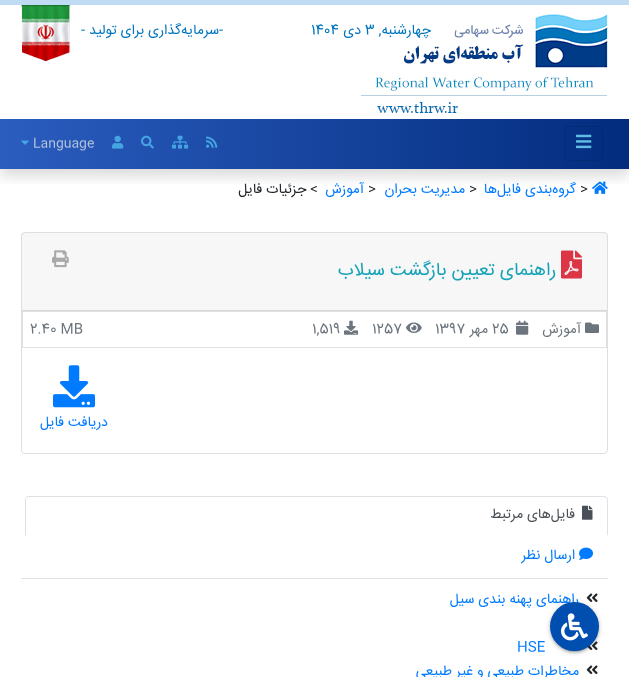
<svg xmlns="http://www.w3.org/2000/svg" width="629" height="677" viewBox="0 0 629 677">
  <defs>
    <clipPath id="clip1"><rect x="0" y="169" width="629" height="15"/></clipPath>
    <linearGradient id="g1" gradientUnits="userSpaceOnUse" x1="0" y1="144" x2="629" y2="144"><stop offset="0" stop-color="rgb(43,93,191)"/><stop offset="1" stop-color="rgb(2,44,126)"/></linearGradient>
  </defs>
  <rect width="100%" height="100%" fill="rgb(255,255,255)"/>
  <image x="592" y="181" width="16" height="13" href="pic9.png"/>
  <g clip-path="url(#clip1)">
    <rect x="0" y="7" width="629" height="169" fill="rgba(0,0,0,0.15)" filter="blur(7px)"/>
  </g>
  <rect x="0" y="0" width="629" height="5" fill="rgb(192,219,244)"/>
  <image x="361" y="14" width="247" height="99" href="pic1.png"/>
  <text x="431" y="34" font-family="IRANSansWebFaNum" font-size="14" direction="rtl" fill="rgb(0,117,189)">چهارشنبه,</text>
  <text x="365" y="34" font-family="IRANSansWebFaNum" font-size="14" fill="rgb(0,117,189)">3</text>
  <text x="361" y="34" font-family="IRANSansWebFaNum" font-size="14" direction="rtl" fill="rgb(0,117,189)">دی</text>
  <g font-family="IRANSansWebFaNum" font-size="14" fill="rgb(0,117,189)">
    <text x="311" y="34">1404</text>
    <text x="219" y="34">-</text>
  </g>
  <text x="219" y="34" font-family="IRANSansWebFaNum" font-size="14" direction="rtl" fill="rgb(0,117,189)">سرمایه‌گذاری برای تولید</text>
  <text x="81" y="34" font-family="IRANSansWebFaNum" font-size="14" fill="rgb(0,117,189)">-</text>
  <image x="21" y="5" width="50" height="57" href="pic2.png"/>
  <rect x="0" y="119" width="629" height="50" fill="url(#g1)"/>
  <image x="206" y="136" width="12" height="12" href="pic3.png"/>
  <image x="172" y="135" width="17" height="14" href="pic4.png"/>
  <image x="141" y="135" width="13" height="14" href="pic5.png"/>
  <image x="112" y="135" width="12" height="14" href="pic6.png"/>
  <text x="33" y="147" font-family="IRANSansWebFaNum" font-size="13" fill="rgb(180,197,219)">Language</text>
  <image x="21" y="140" width="8" height="5" href="pic7.png"/>
  <rect x="564.5" y="126.5" width="38" height="34" rx="3.5" fill="none" stroke="rgba(0,0,0,0.1)"/>
  <image x="576" y="134" width="16" height="15" href="pic8.png"/>
  <text x="580" y="193" font-family="IRANSansWebFaNum" font-size="14" fill="rgb(33,37,41)">&gt;</text>
  <text x="576" y="193" font-family="IRANSansWebFaNum" font-size="14" direction="rtl" fill="rgb(0,123,255)">گروه‌بندی فایل‌ها </text>
  <text x="469" y="193" font-family="IRANSansWebFaNum" font-size="14" fill="rgb(33,37,41)">&gt;</text>
  <text x="465" y="193" font-family="IRANSansWebFaNum" font-size="14" direction="rtl" fill="rgb(0,123,255)">مدیریت بحران </text>
  <text x="368" y="193" font-family="IRANSansWebFaNum" font-size="14" fill="rgb(33,37,41)">&gt;</text>
  <text x="364" y="193" font-family="IRANSansWebFaNum" font-size="14" direction="rtl" fill="rgb(0,123,255)">آموزش </text>
  <text x="318" y="193" font-family="IRANSansWebFaNum" font-size="14" direction="rtl" fill="rgb(33,37,41)">&gt; جزئیات فایل</text>
  <rect x="21.5" y="232.5" width="586" height="221" rx="3.5" fill="none" stroke="rgb(223,223,223)"/>
  <rect x="22" y="233" width="585" height="77" fill="rgba(0,0,0,0.03)"/>
  <rect x="22" y="310" width="585" height="1" fill="rgb(216,216,216)"/>
  <image x="561" y="250" width="21" height="29" href="pic10.png"/>
  <text x="556" y="275" font-family="IRANSansWebFaNum" font-size="18.25" direction="rtl" fill="rgb(23,162,184)">راهنمای تعیین بازگشت سیلاب</text>
  <image x="52" y="250" width="17" height="18" href="pic11.png"/>
  <rect x="22.5" y="311.5" width="584" height="36" fill="none" stroke="rgb(222,226,230)"/>
  <image x="585" y="322" width="14" height="11" href="pic12.png"/>
  <text x="581" y="333" font-family="IRANSansWebFaNum" font-size="14" direction="rtl" fill="rgb(108,117,125)">آموزش</text>
  <image x="516" y="320" width="13" height="15" href="pic13.png"/>
  <text x="492" y="333" font-family="IRANSansWebFaNum" font-size="14" fill="rgb(108,117,125)">25</text>
  <text x="488" y="333" font-family="IRANSansWebFaNum" font-size="14" direction="rtl" fill="rgb(108,117,125)">مهر</text>
  <text x="435" y="333" font-family="IRANSansWebFaNum" font-size="14" fill="rgb(108,117,125)">1397</text>
  <image x="406" y="322" width="16" height="11" href="pic14.png"/>
  <text x="372" y="333" font-family="IRANSansWebFaNum" font-size="14" fill="rgb(108,117,125)">1257</text>
  <image x="344" y="320" width="14" height="15" href="pic15.png"/>
  <g font-family="IRANSansWebFaNum" font-size="14" fill="rgb(108,117,125)">
    <text x="312" y="333">1,519</text>
    <text x="30" y="333">2.40 MB</text>
  </g>
  <image x="53" y="365" width="42" height="43" href="pic16.png"/>
  <text x="108" y="426" font-family="IRANSansWebFaNum" font-size="14" direction="rtl" fill="rgb(0,123,255)">دریافت فایل</text>
  <rect x="21" y="578" width="587" height="1" fill="rgb(222,226,230)"/>
  <path d="M28 496L26 497L27 498L28 497H604L606 498L607 497L604 496Z" fill="rgb(222,226,230)"/>
  <path d="M608 536V500C608 499 607.5 498 607 497L606 498C607 498 607 499 607 500V535Z" fill="rgb(222,226,230)"/>
  <path d="M608 536L607 535H26L25 536Z" fill="rgb(255,255,255)"/>
  <path d="M25 536L26 535V500C26 499 26.5 498 26.5 497.5L26 497C25.5 498 25 499 25 500Z" fill="rgb(222,226,230)"/>
  <image x="582" y="505" width="11" height="15" href="pic17.png"/>
  <text x="575" y="518" font-family="IRANSansWebFaNum" font-size="14" direction="rtl" fill="rgb(73,80,87)">فایل‌های مرتبط</text>
  <image x="579" y="547" width="14" height="13" href="pic18.png"/>
  <text x="575" y="559" font-family="IRANSansWebFaNum" font-size="14" direction="rtl" fill="rgb(0,123,255)">ارسال نظر</text>
  <image x="586" y="593" width="12" height="10" href="pic19.png"/>
  <text x="579" y="603" font-family="IRANSansWebFaNum" font-size="14" direction="rtl" fill="rgb(0,123,255)">راهنمای پهنه بندی سیل</text>
  <image x="597" y="618" width="1" height="2" href="pic20.png"/>
  <image x="587" y="641" width="11" height="10" href="pic21.png"/>
  <text x="517" y="651" font-family="IRANSansWebFaNum" font-size="14" fill="rgb(0,123,255)">HSE</text>
  <image x="586" y="665" width="12" height="10" href="pic19.png"/>
  <text x="579" y="675" font-family="IRANSansWebFaNum" font-size="14" direction="rtl" fill="rgb(0,123,255)">مخاطرات طبیعی و غیر طبیعی</text>
  <rect x="550" y="603" width="49" height="49" rx="24.5" fill="rgba(0,0,0,0.2)" filter="blur(2.5px)"/>
  <rect x="552" y="607" width="45" height="45" rx="22.5" fill="rgba(0,0,0,0.12)" filter="blur(0.5px)"/>
  <rect x="550" y="604" width="49" height="49" rx="24.5" fill="rgba(0,0,0,0.14)" filter="blur(1px)"/>
  <circle cx="574.5" cy="626.5" r="24.5" fill="rgb(0,78,175)"/>
  <image x="561" y="613" width="27" height="28" href="pic22.png"/>
</svg>
